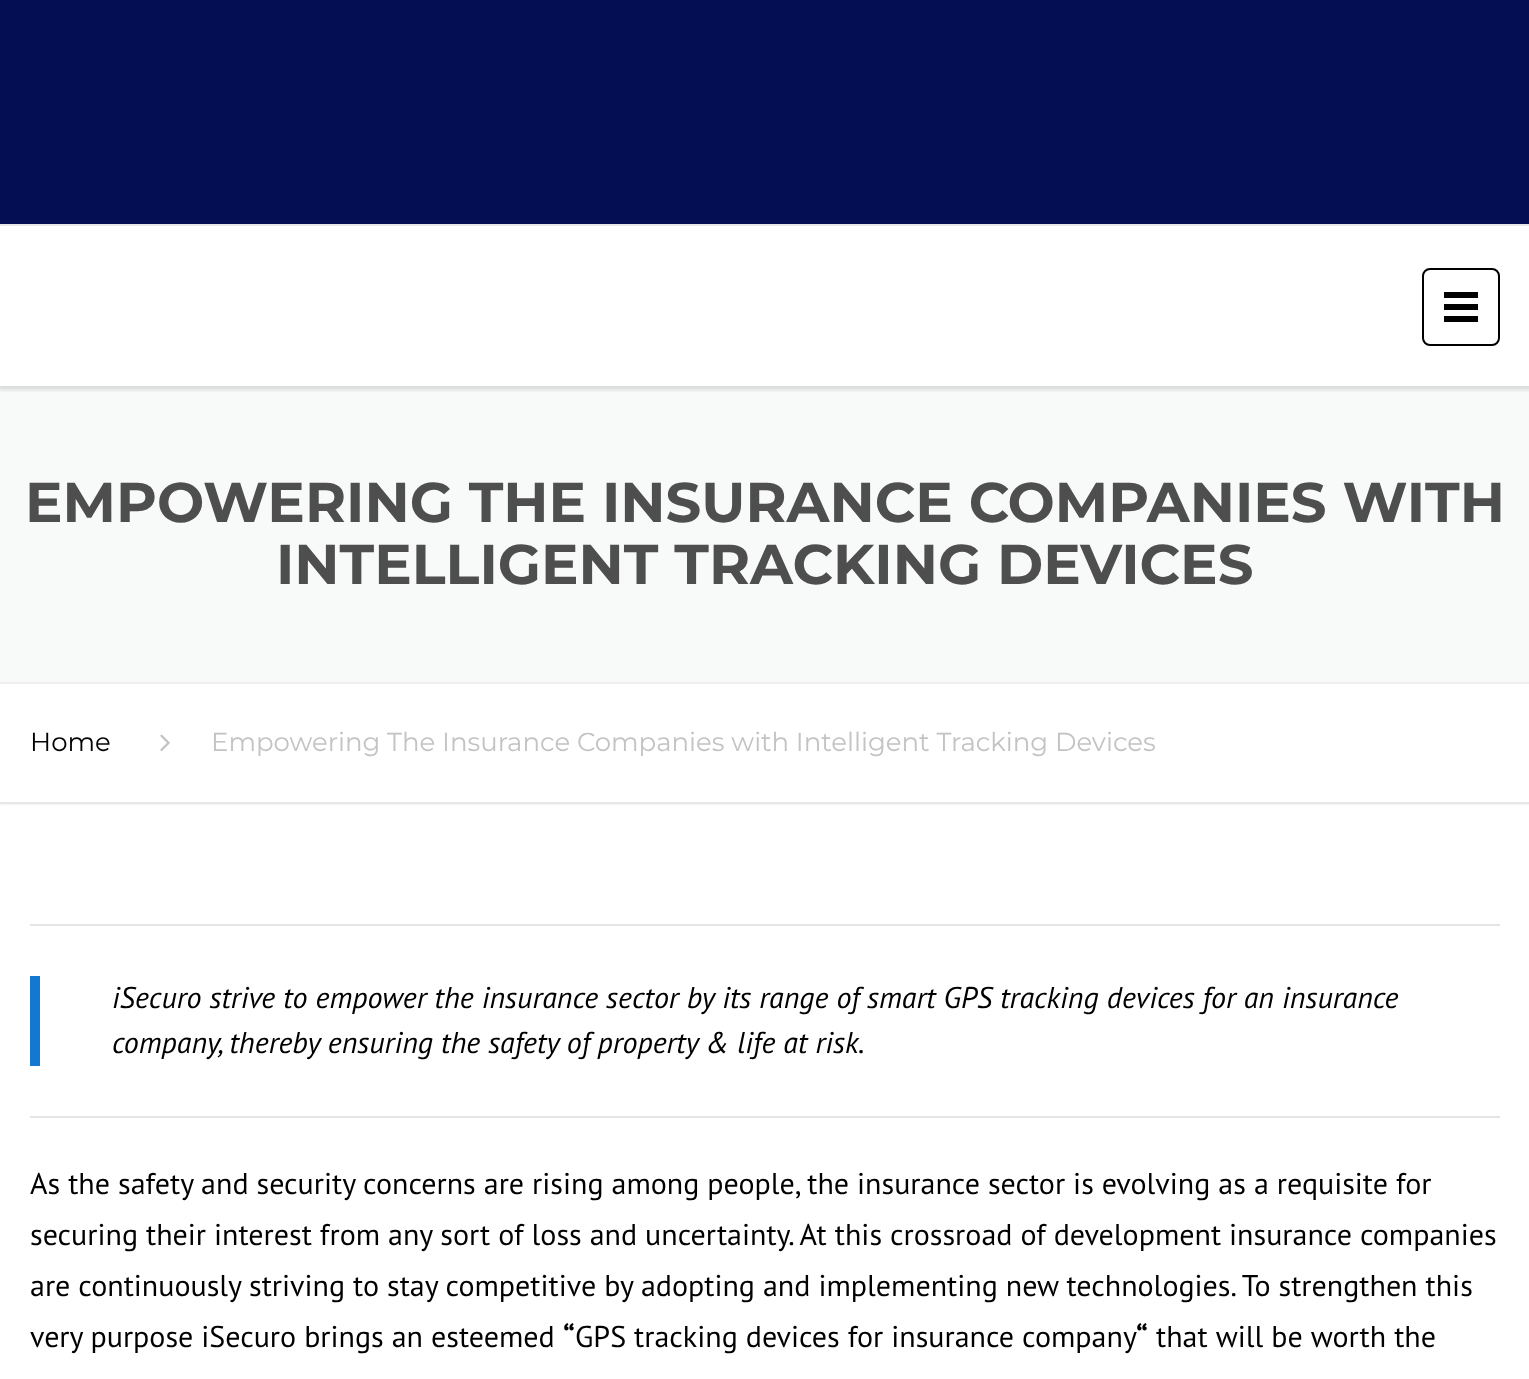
<svg xmlns="http://www.w3.org/2000/svg" width="1529" height="1379" viewBox="0 0 1529 1379">
  <defs>
    <clipPath id="clip1"><rect x="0" y="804" width="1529" height="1"/></clipPath>
    <clipPath id="clip2"><rect x="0" y="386" width="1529" height="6"/></clipPath>
  </defs>
  <rect width="100%" height="100%" fill="rgb(255,255,255)"/>
  <g clip-path="url(#clip1)">
    <rect x="0" y="684" width="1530" height="120" fill="rgba(0,0,0,0.14)" filter="blur(1px)"/>
  </g>
  <rect x="0" y="386" width="1529" height="296" fill="rgb(248,249,249)"/>
  <g clip-path="url(#clip2)">
    <rect x="-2" y="226" width="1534" height="164" fill="rgba(0,0,0,0.12)" filter="blur(2px)"/>
  </g>
  <rect x="0" y="0" width="1529" height="224" fill="rgb(3,15,82)"/>
  <rect x="0" y="224" width="1529" height="2" fill="rgb(231,231,231)"/>
  <rect x="1423" y="269" width="76" height="76" rx="7" fill="none" stroke="rgb(0,0,0)" stroke-width="2"/>
  <rect x="1444" y="292" width="34" height="6" fill="rgb(0,0,0)"/>
  <rect x="1444" y="304" width="34" height="6" fill="rgb(0,0,0)"/>
  <rect x="1444" y="316" width="34" height="6" fill="rgb(0,0,0)"/>
  <rect x="0" y="682" width="1529" height="2" fill="rgb(238,238,238)"/>
  <g font-family="Montserrat" font-size="56" font-weight="bold" fill="rgb(78,78,78)">
    <text x="25" y="522">EMPOWERING THE INSURANCE COMPANIES WITH</text>
    <text x="276" y="584">INTELLIGENT TRACKING DEVICES</text>
  </g>
  <rect x="0" y="802" width="1529" height="2" fill="rgb(231,231,231)"/>
  <text x="30" y="751" font-family="Montserrat" font-size="26" fill="rgb(0,0,0)">Home</text>
  <image x="160" y="734" width="10" height="18" href="pic1.png"/>
  <text x="211" y="751" font-family="Montserrat" font-size="26" fill="rgb(195,195,195)">Empowering The Insurance Companies with Intelligent Tracking Devices</text>
  <rect x="30" y="924" width="1470" height="2" fill="rgb(229,229,229)"/>
  <rect x="30" y="1116" width="1470" height="2" fill="rgb(229,229,229)"/>
  <rect x="30" y="976" width="10" height="90" fill="rgb(19,120,209)"/>
  <g font-family="PT Sans" font-size="30" font-style="italic" fill="rgb(0,0,0)">
    <text>
      <tspan x="112" y="1008">iSecuro strive to empower the insurance sector by its range of smart GPS tracking devices for an insurance</tspan>
      <tspan x="112" y="1053">company, thereby ensuring the safety of property &amp; life at risk.</tspan>
    </text>
  </g>
  <g font-family="PT Sans" font-size="30" fill="rgb(0,0,0)">
    <text>
      <tspan x="30" y="1194">As the safety and security concerns are rising among people, the insurance sector is evolving as a requisite for</tspan>
      <tspan x="30" y="1245">securing their interest from any sort of loss and uncertainty. At this crossroad of development insurance companies</tspan>
      <tspan x="30" y="1296">are continuously striving to stay competitive by adopting and implementing new technologies. To strengthen this</tspan>
      <tspan x="30" y="1347">very purpose iSecuro brings an esteemed</tspan>
    </text>
  </g>
  <text x="563" y="1347" font-family="PT Sans" font-size="30" font-weight="bold" fill="rgb(0,0,0)">“</text>
  <text x="575" y="1347" font-family="PT Sans" font-size="30" fill="rgb(0,0,0)">GPS tracking devices for insurance company</text>
  <text x="1136" y="1347" font-family="PT Sans" font-size="30" font-weight="bold" fill="rgb(0,0,0)">“</text>
  <text x="1156" y="1347" font-family="PT Sans" font-size="30" fill="rgb(0,0,0)">that will be worth the</text>
</svg>
